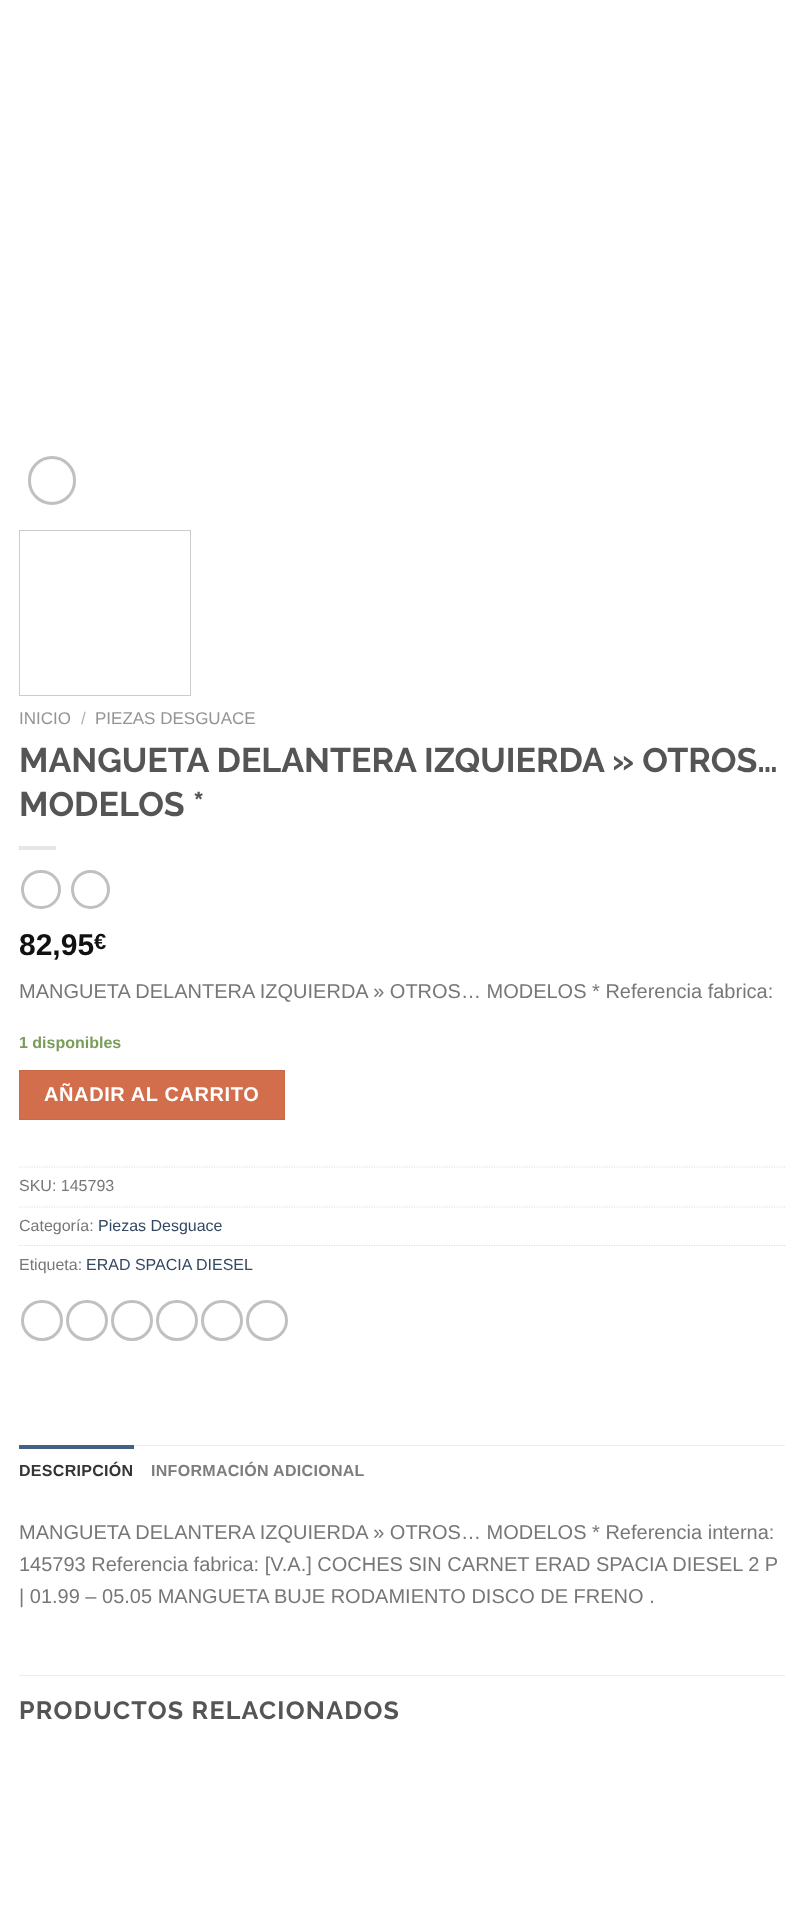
<svg xmlns="http://www.w3.org/2000/svg" width="803" height="1913" viewBox="0 0 803 1913">
  <rect width="100%" height="100%" fill="rgb(255,255,255)"/>
  <rect x="29.5" y="457.5" width="45" height="46" rx="22.5" fill="none" stroke="rgb(192,192,192)" stroke-width="3"/>
  <rect x="19.5" y="530.5" width="171" height="165" fill="none" stroke="rgb(204,204,204)"/>
  <text x="19" y="724" font-family="Liberation Sans" font-size="17" fill="rgb(148,148,148)">INICIO</text>
  <text x="81" y="724" font-family="Liberation Sans" font-size="17" fill="rgb(178,178,178)">/</text>
  <text x="95" y="724" font-family="Liberation Sans" font-size="17" fill="rgb(148,148,148)">PIEZAS DESGUACE</text>
  <g font-family="Raleway" font-size="34" font-weight="bold" fill="rgb(85,85,85)">
    <text>
      <tspan x="19" y="772">MANGUETA DELANTERA IZQUIERDA » OTROS…</tspan>
      <tspan x="19" y="816">MODELOS *</tspan>
    </text>
  </g>
  <rect x="19" y="846" width="37" height="4" fill="rgb(230,230,230)"/>
  <rect x="22.5" y="871.5" width="37" height="36" rx="18" fill="none" stroke="rgb(192,192,192)" stroke-width="3"/>
  <circle cx="90.5" cy="889.5" r="18" fill="none" stroke="rgb(192,192,192)" stroke-width="3"/>
  <text x="19" y="955" font-family="Liberation Sans" font-size="30" font-weight="bold" fill="rgb(17,17,17)">82,95</text>
  <text x="94" y="949" font-family="Liberation Sans" font-size="22" font-weight="bold" fill="rgb(17,17,17)">€</text>
  <text x="19" y="998" font-family="Liberation Sans" font-size="20" fill="rgb(119,119,119)">MANGUETA DELANTERA IZQUIERDA » OTROS… MODELOS * Referencia fabrica:</text>
  <text x="19" y="1048" font-family="Liberation Sans" font-size="16" font-weight="bold" fill="rgb(122,156,89)">1 disponibles</text>
  <rect x="19.5" y="1070.5" width="265" height="49" fill="rgb(210,110,75)" stroke="rgb(200,105,71)"/>
  <text x="44" y="1101" font-family="Liberation Sans" font-size="20" font-weight="bold" letter-spacing="0.6" fill="rgb(255,255,255)">AÑADIR AL CARRITO</text>
  <path d="M19 1167H785" fill="none" stroke="rgb(221,221,221)" stroke-width="1.2" stroke-dasharray="1.25 1.25"/>
  <text x="19" y="1191" font-family="Liberation Sans" font-size="16" fill="rgb(119,119,119)">SKU: 145793</text>
  <path d="M19 1207H785" fill="none" stroke="rgb(221,221,221)" stroke-width="1.2" stroke-dasharray="1.25 1.25"/>
  <text x="19" y="1231" font-family="Liberation Sans" font-size="16" fill="rgb(119,119,119)">Categoría:</text>
  <text x="98" y="1231" font-family="Liberation Sans" font-size="16" fill="rgb(51,72,98)">Piezas Desguace</text>
  <path d="M19 1245.5H785" fill="none" stroke="rgb(221,221,221)" stroke-width="1.2" stroke-dasharray="1.25 1.25"/>
  <text x="19" y="1270" font-family="Liberation Sans" font-size="16" fill="rgb(119,119,119)">Etiqueta:</text>
  <text x="86" y="1270" font-family="Liberation Sans" font-size="16" fill="rgb(51,72,98)">ERAD SPACIA DIESEL</text>
  <rect x="22.5" y="1301.5" width="39" height="38" rx="19" fill="none" stroke="rgb(192,192,192)" stroke-width="3"/>
  <rect x="67.5" y="1301.5" width="39" height="38" rx="19" fill="none" stroke="rgb(192,192,192)" stroke-width="3"/>
  <rect x="112.5" y="1301.5" width="39" height="38" rx="19" fill="none" stroke="rgb(192,192,192)" stroke-width="3"/>
  <rect x="157.5" y="1301.5" width="39" height="38" rx="19" fill="none" stroke="rgb(192,192,192)" stroke-width="3"/>
  <rect x="202.5" y="1301.5" width="39" height="38" rx="19" fill="none" stroke="rgb(192,192,192)" stroke-width="3"/>
  <rect x="247.5" y="1301.5" width="39" height="38" rx="19" fill="none" stroke="rgb(192,192,192)" stroke-width="3"/>
  <rect x="134" y="1445" width="651" height="1" fill="rgb(236,236,236)"/>
  <rect x="19" y="1445" width="115" height="4" fill="rgb(68,96,132)"/>
  <text x="19" y="1476" font-family="Liberation Sans" font-size="16" font-weight="bold" letter-spacing="0.3" fill="rgb(53,53,53)">DESCRIPCIÓN</text>
  <text x="151" y="1476" font-family="Liberation Sans" font-size="16" font-weight="bold" letter-spacing="0.3" fill="rgb(125,125,125)">INFORMACIÓN ADICIONAL</text>
  <g font-family="Liberation Sans" font-size="20" fill="rgb(119,119,119)">
    <text>
      <tspan x="19" y="1539">MANGUETA DELANTERA IZQUIERDA » OTROS… MODELOS * Referencia interna:</tspan>
      <tspan x="19" y="1571">145793 Referencia fabrica: [V.A.] COCHES SIN CARNET ERAD SPACIA DIESEL 2 P</tspan>
      <tspan x="19" y="1603">| 01.99 – 05.05 MANGUETA BUJE RODAMIENTO DISCO DE FRENO .</tspan>
    </text>
  </g>
  <rect x="19" y="1675" width="766" height="1" fill="rgb(236,236,236)"/>
  <text x="19" y="1719" font-family="Raleway" font-size="25" font-weight="bold" letter-spacing="1.25" fill="rgb(85,85,85)">PRODUCTOS RELACIONADOS</text>
</svg>
